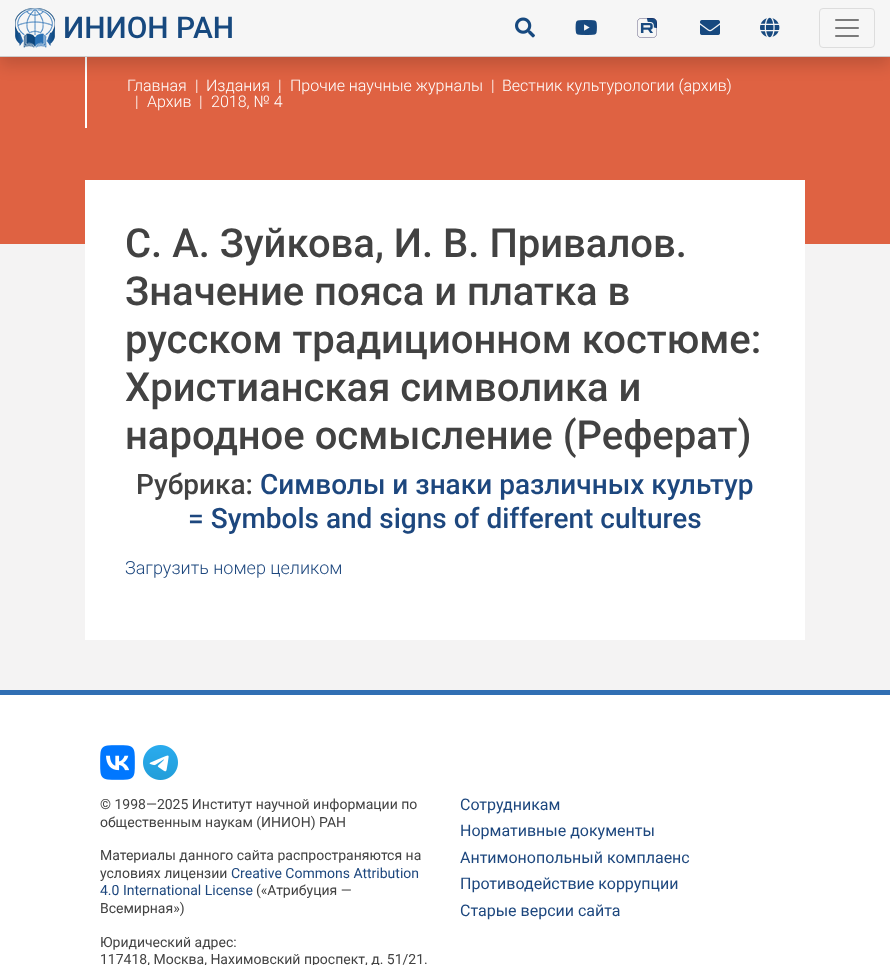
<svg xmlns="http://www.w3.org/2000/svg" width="890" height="965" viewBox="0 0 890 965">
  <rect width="100%" height="100%" fill="rgb(255,255,255)"/>
  <rect x="0" y="57" width="890" height="187" fill="rgb(223,98,66)"/>
  <rect x="85" y="57" width="2" height="71" fill="rgb(255,255,255)"/>
  <rect x="0" y="8" width="890" height="57" fill="rgba(0,0,0,0.15)" filter="blur(8px)"/>
  <rect x="0" y="0" width="890" height="56" fill="rgb(246,246,246)"/>
  <rect x="0" y="56" width="890" height="1" fill="rgb(205,204,204)"/>
  <image x="15" y="8" width="40" height="40" href="pic1.png"/>
  <text x="63" y="38" font-family="Roboto" font-size="30" font-weight="500" fill="rgb(23,73,127)">ИНИОН РАН</text>
  <image x="515" y="17" width="20" height="21" href="pic2.png"/>
  <image x="575" y="20" width="22" height="15" href="pic3.png"/>
  <image x="637" y="18" width="20" height="20" href="pic4.png"/>
  <image x="700" y="20" width="20" height="15" href="pic5.png"/>
  <image x="760" y="17" width="20" height="21" href="pic6.png"/>
  <rect x="819.5" y="8.5" width="55" height="39" rx="3.5" fill="none" stroke="rgb(221,221,221)"/>
  <image x="835" y="19" width="24" height="18" href="pic7.png"/>
  <rect x="0" y="244" width="890" height="446" fill="rgb(244,243,243)"/>
  <g font-family="Roboto" font-size="16" font-weight="300" fill="rgb(255,255,255)">
    <text x="127" y="91">Главная</text>
    <text x="195" y="91">|</text>
    <text x="206" y="91">Издания</text>
    <text x="278" y="91">|</text>
    <text x="290" y="91">Прочие научные журналы</text>
    <text x="491" y="91">|</text>
    <text x="502" y="91">Вестник культурологии (архив)</text>
    <text x="135" y="107">|</text>
    <text x="147" y="107">Архив</text>
    <text x="199" y="107">|</text>
    <text x="211" y="107">2018, № 4</text>
  </g>
  <rect x="85" y="180" width="720" height="460" fill="rgb(255,255,255)"/>
  <g font-family="Roboto" font-size="40" font-weight="500" fill="rgb(66,66,66)">
    <text>
      <tspan x="125" y="257">С. А. Зуйкова, И. В. Привалов.</tspan>
      <tspan x="125" y="305">Значение пояса и платка в</tspan>
      <tspan x="125" y="353">русском традиционном костюме:</tspan>
      <tspan x="125" y="401">Христианская символика и</tspan>
      <tspan x="125" y="449">народное осмысление (Реферат)</tspan>
    </text>
  </g>
  <text x="136" y="494" font-family="Roboto" font-size="28" font-weight="500" fill="rgb(66,66,66)">Рубрика:</text>
  <g font-family="Roboto" font-size="28" font-weight="500" fill="rgb(29,71,126)">
    <text x="260" y="494">Символы и знаки различных культур</text>
    <text x="188" y="528">= Symbols and signs of different cultures</text>
  </g>
  <text x="125" y="574" font-family="Roboto" font-size="18" font-weight="300" fill="rgb(29,71,126)">Загрузить номер целиком</text>
  <rect x="0" y="690" width="890" height="5" fill="rgb(48,111,179)"/>
  <image x="100" y="745" width="35" height="35" href="pic8.png"/>
  <image x="143" y="745" width="35" height="35" href="pic9.png"/>
  <g font-family="Roboto" font-size="14" fill="rgb(66,66,66)">
    <text>
      <tspan x="100" y="809">© 1998—2025 Институт научной информации по</tspan>
      <tspan x="100" y="827">общественным наукам (ИНИОН) РАН</tspan>
    </text>
    <text>
      <tspan x="100" y="860">Материалы данного сайта распространяются на</tspan>
      <tspan x="100" y="878">условиях лицензии</tspan>
    </text>
  </g>
  <g font-family="Roboto" font-size="14" fill="rgb(29,71,126)">
    <text x="231" y="878">Creative Commons Attribution</text>
    <text x="100" y="895">4.0 International License</text>
  </g>
  <g font-family="Roboto" font-size="14" fill="rgb(66,66,66)">
    <text x="256" y="895">(«Атрибуция —</text>
    <text x="100" y="913">Всемирная»)</text>
    <text>
      <tspan x="100" y="947">Юридический адрес:</tspan>
      <tspan x="100" y="964">117418, Москва, Нахимовский проспект, д. 51/21.</tspan>
    </text>
  </g>
  <g font-family="Roboto" font-size="16" fill="rgb(29,71,126)">
    <text>
      <tspan x="460" y="810">Сотрудникам</tspan>
      <tspan x="460" y="836">Нормативные документы</tspan>
      <tspan x="460" y="863">Антимонопольный комплаенс</tspan>
      <tspan x="460" y="889">Противодействие коррупции</tspan>
      <tspan x="460" y="916">Старые версии сайта</tspan>
    </text>
  </g>
</svg>
